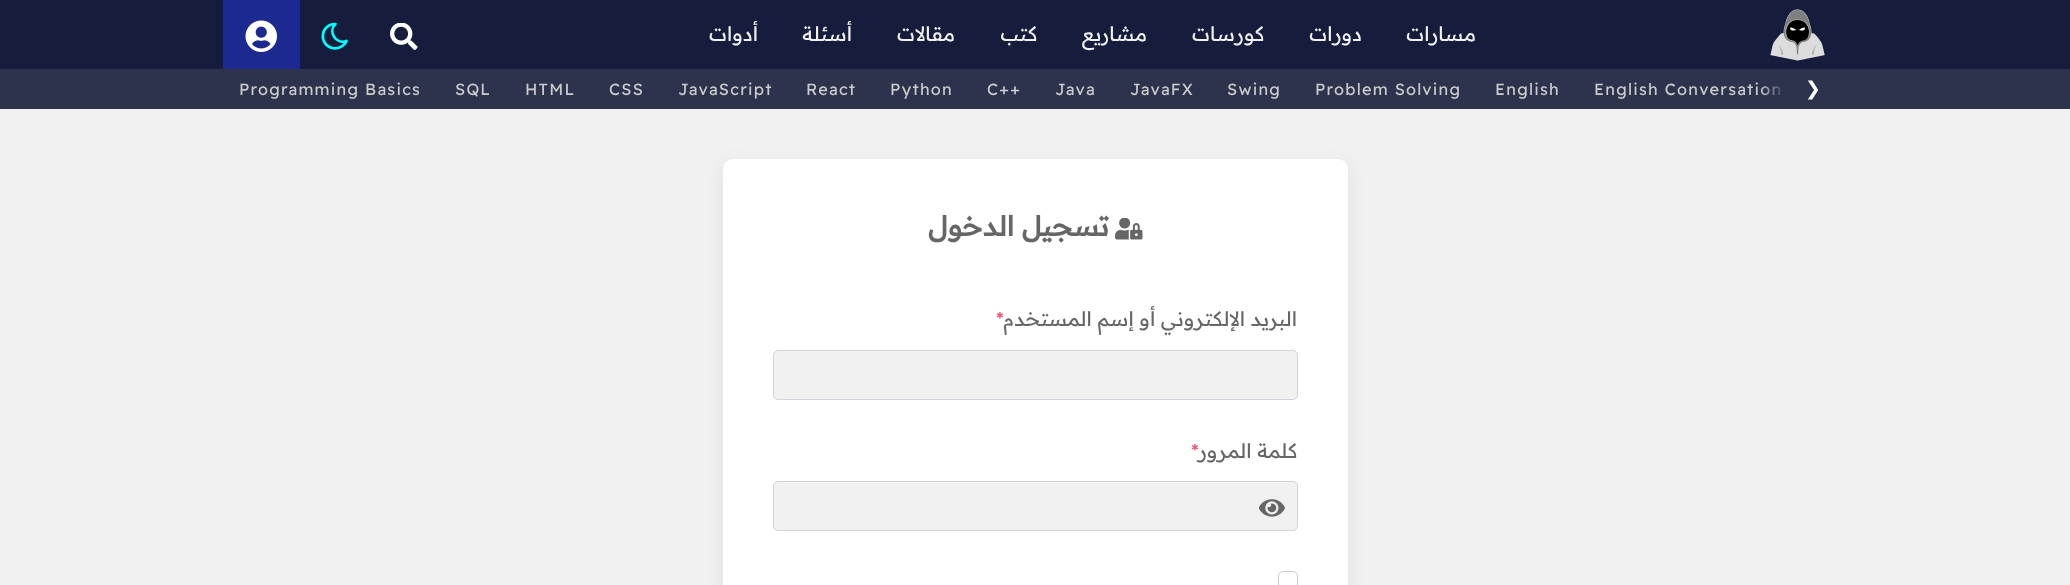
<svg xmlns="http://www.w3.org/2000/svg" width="2070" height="585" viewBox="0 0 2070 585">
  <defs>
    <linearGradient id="g1" gradientUnits="userSpaceOnUse" x1="1848" y1="89" x2="1760" y2="89"><stop offset="0.7" stop-color="rgb(45,50,77)"/><stop offset="1" stop-color="rgb(45,50,77)" stop-opacity="0"/></linearGradient>
  </defs>
  <rect width="100%" height="100%" fill="rgb(45,50,77)"/>
  <rect x="0" y="0" width="2070" height="69" fill="rgb(21,28,60)"/>
  <rect x="223" y="0" width="77" height="69" fill="rgb(28,41,145)"/>
  <image x="245" y="20" width="32" height="32" href="pic1.png"/>
  <path d="M335 24H335.5C327.5 31.5 336 45 346.5 41C344 46.5 337.5 49.5 332 48C326 46.5 322 40.5 323 34.5C323.5 28.5 329 24 335 24Z" fill="none" stroke="rgb(0,255,255)" stroke-width="2.7" stroke-linecap="round" stroke-linejoin="round"/>
  <image x="390" y="23" width="28" height="27" href="pic2.png"/>
  <g font-family="Readex Pro" font-size="20" direction="rtl" fill="rgb(241,241,241)">
    <text x="758" y="41">أدوات</text>
    <text x="852" y="41">أسئلة</text>
    <text x="955" y="41">مقالات</text>
    <text x="1037" y="41">كتب</text>
    <text x="1147" y="41">مشاريع</text>
    <text x="1264" y="41">كورسات</text>
    <text x="1362" y="41">دورات</text>
    <text x="1476" y="41">مسارات</text>
  </g>
  <image x="1770" y="9" width="55" height="52" href="pic3.png"/>
  <g font-family="Readex Pro" font-size="16.25" letter-spacing="1.25" fill="rgb(203,203,203)">
    <text x="239" y="95">Programming Basics</text>
    <text x="455" y="95">SQL</text>
    <text x="525" y="95">HTML</text>
    <text x="609" y="95">CSS</text>
    <text x="678" y="95">JavaScript</text>
    <text x="806" y="95">React</text>
    <text x="890" y="95">Python</text>
    <text x="987" y="95">C++</text>
    <text x="1055" y="95">Java</text>
    <text x="1130" y="95">JavaFX</text>
    <text x="1227" y="95">Swing</text>
    <text x="1315" y="95">Problem Solving</text>
    <text x="1495" y="95">English</text>
    <text x="1594" y="95">English Conversation</text>
  </g>
  <rect x="1761" y="86" width="20" height="10" fill="url(#g1)"/>
  <text x="1805" y="95" font-family="DejaVu Sans" font-size="19" fill="rgb(255,255,255)">❯</text>
  <rect x="0" y="109" width="2070" height="476" fill="rgb(241,241,241)"/>
  <rect x="723" y="165" width="625" height="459" rx="10" fill="rgba(0,0,0,0.08)" filter="blur(9.5px)"/>
  <rect x="723" y="159" width="625" height="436" rx="10" fill="rgb(255,255,255)"/>
  <text x="1109" y="236" font-family="Readex Pro" font-size="27.5" font-weight="bold" direction="rtl" fill="rgb(102,102,102)">تسجيل الدخول</text>
  <image x="1115" y="218" width="28" height="22" href="pic4.png"/>
  <text x="996" y="326" font-family="Readex Pro" font-size="20" fill="rgb(240,80,110)">*</text>
  <text x="1297" y="326" font-family="Readex Pro" font-size="20" direction="rtl" fill="rgb(102,102,102)">البريد الإلكتروني أو إسم المستخدم</text>
  <rect x="773.5" y="350.5" width="524" height="49" rx="4.5" fill="rgb(241,241,241)" stroke="rgb(206,212,218)"/>
  <text x="1297" y="458" font-family="Readex Pro" font-size="20" direction="rtl" fill="rgb(102,102,102)">كلمة المرور</text>
  <text x="1191" y="458" font-family="Readex Pro" font-size="20" fill="rgb(240,80,110)">*</text>
  <rect x="773.5" y="481.5" width="524" height="49" rx="4.5" fill="rgb(241,241,241)" stroke="rgb(206,212,218)"/>
  <image x="1259" y="499" width="26" height="18" href="pic5.png"/>
  <rect x="1278.5" y="571.5" width="19" height="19" rx="4.5" fill="none" stroke="rgb(204,204,204)"/>
</svg>
